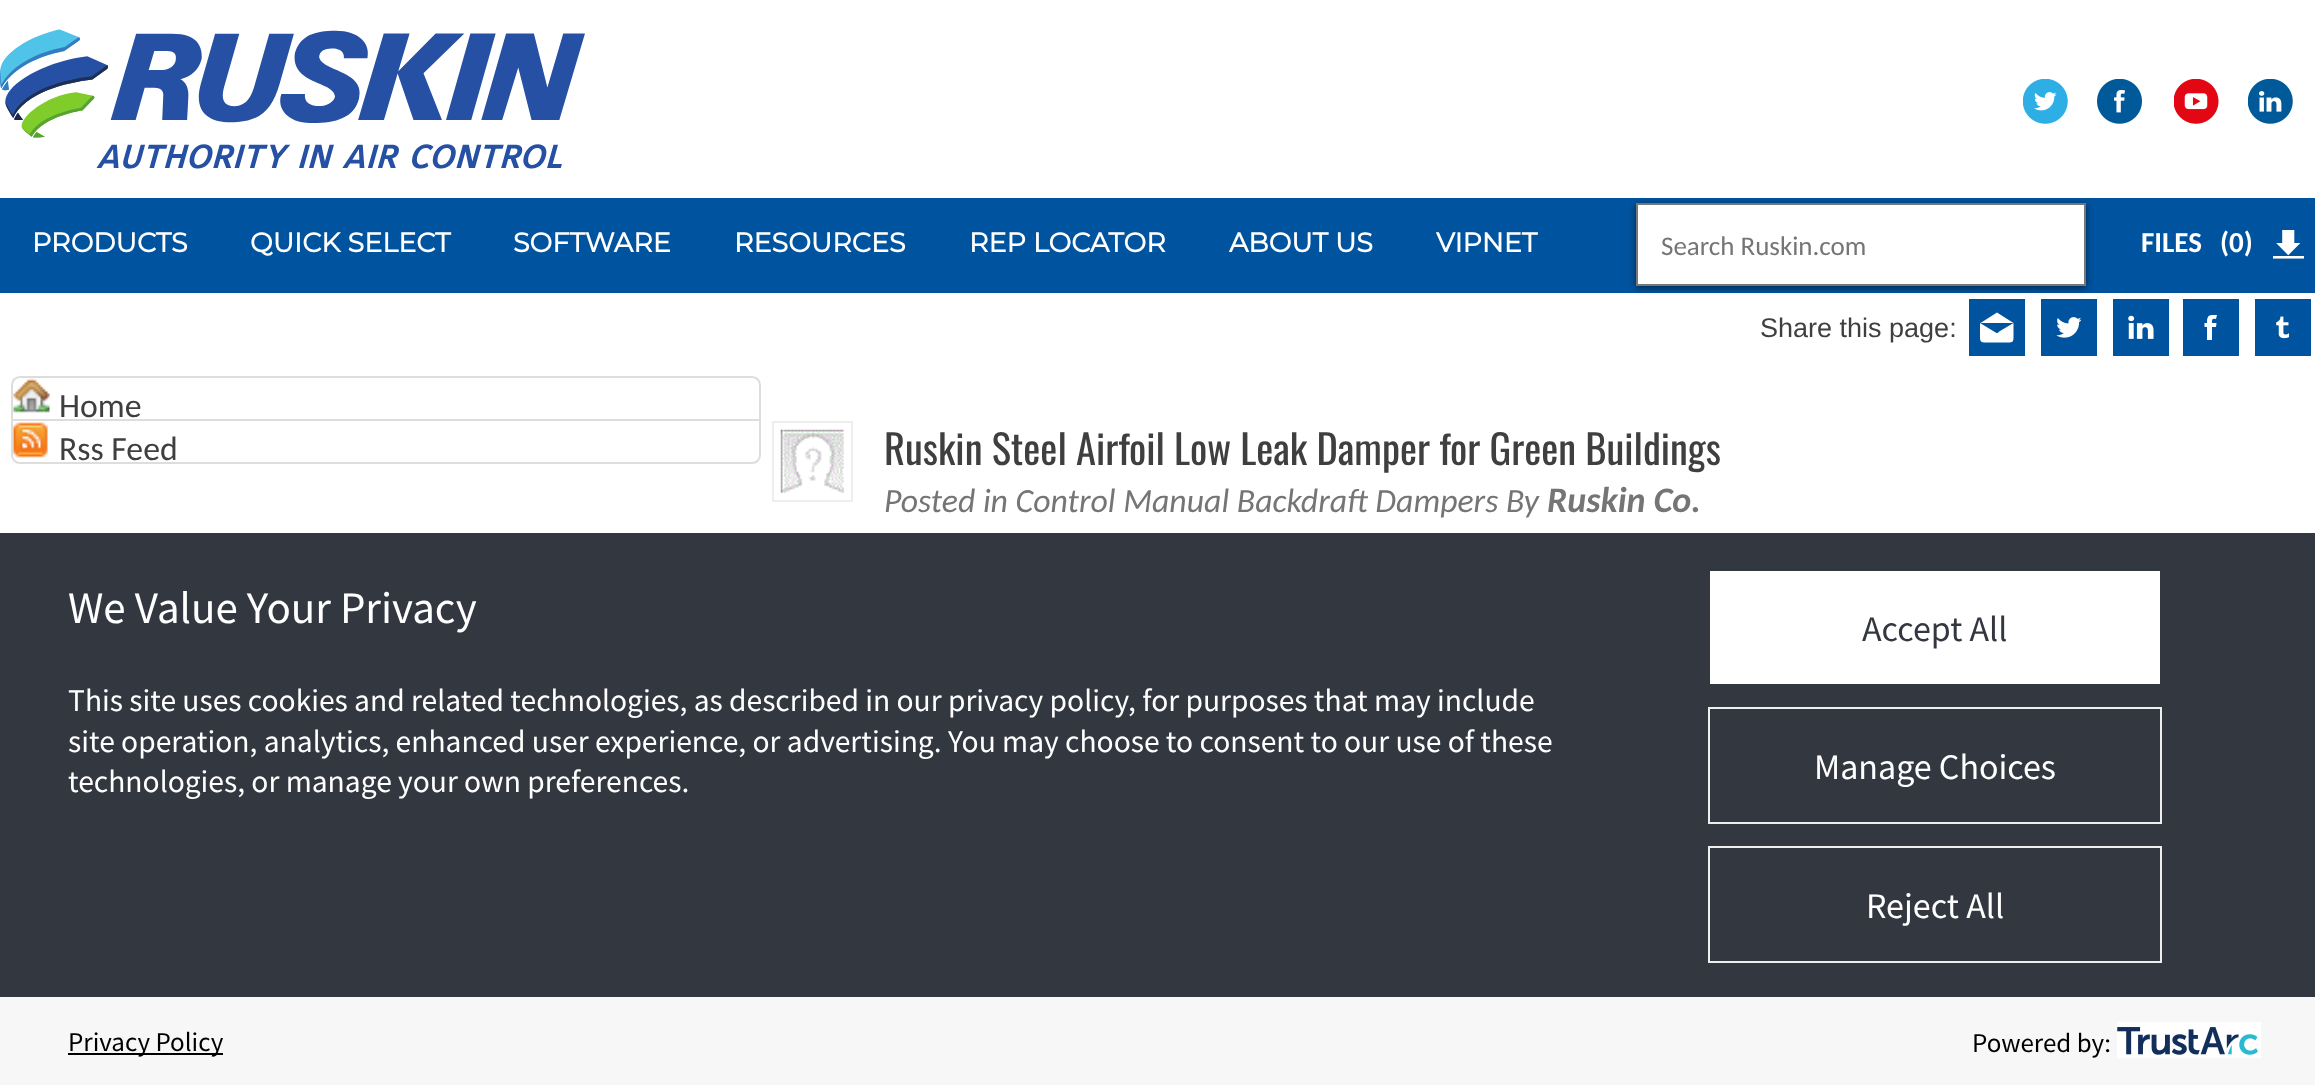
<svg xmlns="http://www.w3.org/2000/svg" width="2315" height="1085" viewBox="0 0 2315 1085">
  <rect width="100%" height="100%" fill="rgb(255,255,255)"/>
  <image x="0" y="29" width="585" height="140" href="pic1.png"/>
  <image x="2023" y="79" width="45" height="45" href="pic2.png"/>
  <image x="2097" y="79" width="45" height="45" href="pic3.png"/>
  <image x="2174" y="79" width="45" height="45" href="pic4.png"/>
  <image x="2248" y="79" width="45" height="45" href="pic5.png"/>
  <rect x="0" y="198" width="2315" height="95" fill="rgb(0,83,158)"/>
  <g font-family="Montserrat" font-size="27" font-weight="bold" fill="rgb(255,255,255)">
    <text x="32" y="252">PRODUCTS</text>
    <text x="250" y="252">QUICK SELECT</text>
    <text x="513" y="252">SOFTWARE</text>
    <text x="734" y="252">RESOURCES</text>
    <text x="969" y="252">REP LOCATOR</text>
    <text x="1229" y="252">ABOUT US</text>
    <text x="1436" y="252">VIPNET</text>
  </g>
  <rect x="1636" y="205" width="450" height="83" fill="rgba(0,0,0,0.5)" filter="blur(3.5px)"/>
  <rect x="1637" y="204" width="448" height="81" fill="rgb(255,255,255)" stroke="rgb(119,119,119)" stroke-width="2"/>
  <text x="1661" y="255" font-family="Carlito" font-size="27" fill="rgb(117,117,117)">Search Ruskin.com</text>
  <g font-family="Carlito" font-size="29" font-weight="bold" fill="rgb(255,255,255)">
    <text x="2141" y="252">FILES</text>
    <text x="2220" y="252">(0)</text>
  </g>
  <image x="2273" y="230" width="31" height="29" href="pic6.png"/>
  <rect x="1969" y="299" width="56" height="57" fill="rgb(0,83,158)"/>
  <image x="2041" y="299" width="56" height="57" href="pic7.png"/>
  <image x="2113" y="299" width="56" height="57" href="pic8.png"/>
  <rect x="2183" y="299" width="56" height="57" fill="rgb(0,83,158)"/>
  <image x="2255" y="299" width="56" height="57" href="pic9.png"/>
  <text x="1760" y="337" font-family="Liberation Sans" font-size="27" fill="rgb(63,63,63)">Share this page:</text>
  <path d="M1997 312.5L1980.5 323H2013.5ZM2013.5 323L2000 331C1998 332.5 1998 333 1996.5 333L1980 323V336.5C1980 343 1981.5 342.5 1988 342.5H2006C2012.5 342.5 2013.5 343 2013.5 336.5Z" fill="rgb(255,255,255)"/>
  <path d="M2204.5 323H2207C2207 319.5 2207 315 2212 315H2217L2216 319C2212 318 2212 319.5 2212 323H2216.5L2216 327H2212V340H2207V327H2204.5Z" fill="rgb(255,255,255)"/>
  <image x="13" y="378" width="37" height="35" href="pic10.png"/>
  <path d="M20 377H752C756.5 377 760 380.5 760 385V420H12V385C12 380.5 15.5 377 20 377Z" fill="none" stroke="rgb(221,221,221)" stroke-width="2"/>
  <text x="59" y="417" font-family="Carlito" font-size="33.75" fill="rgb(63,63,63)">Home</text>
  <image x="13" y="422" width="35" height="36" href="pic11.png"/>
  <path d="M12 420H760V455C760 459.5 756.5 463 752 463H20C15.5 463 12 459.5 12 455Z" fill="none" stroke="rgb(221,221,221)" stroke-width="2"/>
  <text x="59" y="460" font-family="Carlito" font-size="33.75" fill="rgb(63,63,63)">Rss Feed</text>
  <rect x="773" y="422" width="79" height="79" fill="none" stroke="rgb(238,238,238)" stroke-width="2"/>
  <image x="780" y="429" width="64" height="64" href="pic12.png"/>
  <text x="884" y="465" font-family="Oswald" font-size="40.5" fill="rgb(63,63,63)">Ruskin Steel Airfoil Low Leak Damper for Green Buildings</text>
  <text x="884" y="512" font-family="Carlito" font-size="33.75" font-style="italic" fill="rgb(117,117,117)">Posted in Control Manual Backdraft Dampers By</text>
  <text x="1547" y="512" font-family="Carlito" font-size="36" font-weight="bold" font-style="italic" fill="rgb(117,117,117)">Ruskin Co.</text>
  <rect x="0" y="533" width="2315" height="464" fill="rgb(51,55,64)"/>
  <text x="68" y="623" font-family="Source Sans Pro" font-size="45" fill="rgb(255,255,255)">We Value Your Privacy</text>
  <g font-family="Source Sans Pro" font-size="31.5" fill="rgb(255,255,255)">
    <text>
      <tspan x="68" y="711">This site uses cookies and related technologies, as described in our privacy policy, for purposes that may include</tspan>
      <tspan x="68" y="752">site operation, analytics, enhanced user experience, or advertising. You may choose to consent to our use of these</tspan>
      <tspan x="68" y="792">technologies, or manage your own preferences.</tspan>
    </text>
  </g>
  <rect x="1710" y="571" width="450" height="113" fill="rgb(255,255,255)"/>
  <text x="1862" y="641" font-family="Source Sans Pro" font-size="36" fill="rgb(51,55,64)">Accept All</text>
  <rect x="1709" y="708" width="452" height="115" fill="none" stroke="rgb(238,238,238)" stroke-width="2"/>
  <text x="1814" y="779" font-family="Source Sans Pro" font-size="36" fill="rgb(255,255,255)">Manage Choices</text>
  <rect x="1709" y="847" width="452" height="115" fill="none" stroke="rgb(238,238,238)" stroke-width="2"/>
  <text x="1866" y="918" font-family="Source Sans Pro" font-size="36" fill="rgb(255,255,255)">Reject All</text>
  <rect x="0" y="997" width="2315" height="88" fill="rgb(247,247,247)"/>
  <rect x="68" y="1053" width="155" height="2" fill="rgb(0,0,0)"/>
  <g font-family="Source Sans Pro" font-size="27" fill="rgb(0,0,0)">
    <text x="68" y="1051">Privacy Policy</text>
    <text x="1972" y="1052">Powered by:</text>
  </g>
  <image x="2117" y="1022" width="144" height="36" href="pic13.png"/>
</svg>
